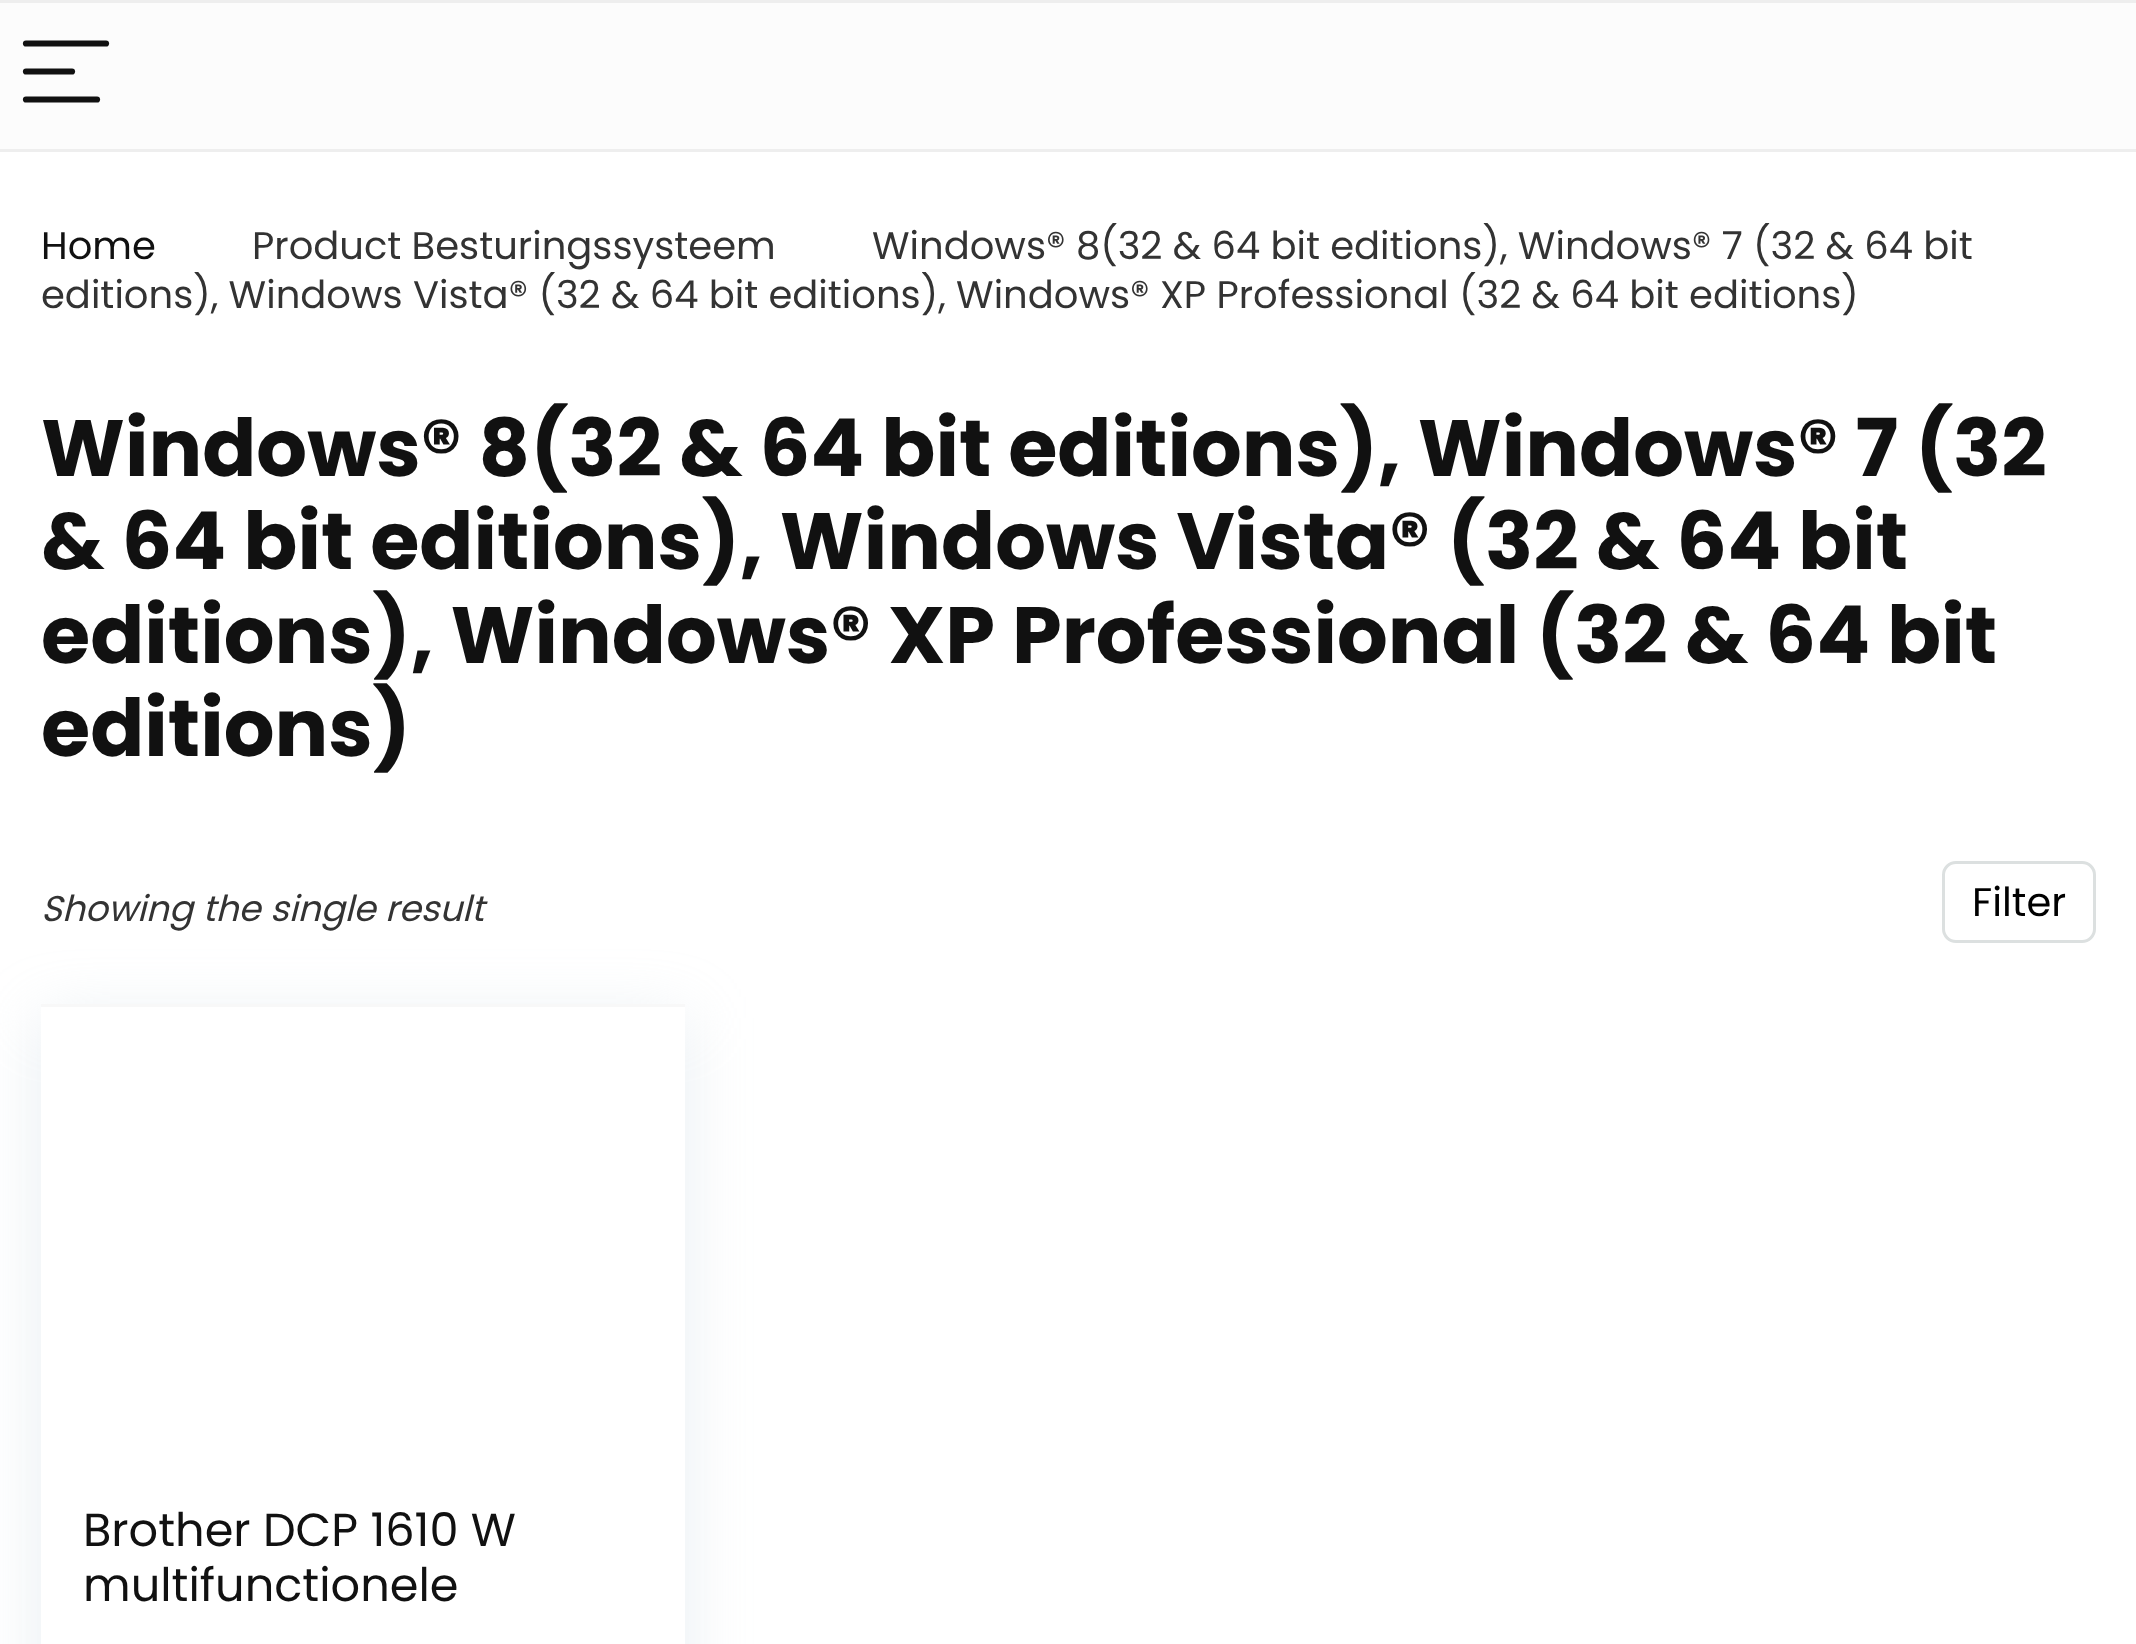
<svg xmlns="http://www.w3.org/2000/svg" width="2136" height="1644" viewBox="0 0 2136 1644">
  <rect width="100%" height="100%" fill="rgb(255,255,255)"/>
  <rect x="0" y="3" width="2136" height="146" fill="rgb(252,252,252)"/>
  <rect x="0" y="0" width="2136" height="3" fill="rgb(238,238,238)"/>
  <rect x="0" y="149" width="2136" height="3" fill="rgb(238,238,238)"/>
  <path d="M26 43.5H106" fill="none" stroke="rgb(17,17,17)" stroke-width="6.2" stroke-linecap="round"/>
  <path d="M26 71.5H72" fill="none" stroke="rgb(17,17,17)" stroke-width="6.2" stroke-linecap="round"/>
  <path d="M26 99.5H97" fill="none" stroke="rgb(17,17,17)" stroke-width="6.2" stroke-linecap="round"/>
  <text x="41" y="259" font-family="Poppins" font-size="38.5" fill="rgb(17,17,17)">Home</text>
  <g font-family="Poppins" font-size="38.5" fill="rgb(51,51,51)">
    <text x="252" y="259">Product Besturingssysteem</text>
    <text x="872" y="259">Windows® 8(32 &amp; 64 bit editions), Windows® 7 (32 &amp; 64 bit</text>
    <text x="41" y="308">editions), Windows Vista® (32 &amp; 64 bit editions), Windows® XP Professional (32 &amp; 64 bit editions)</text>
  </g>
  <g font-family="Poppins" font-size="79.75" font-weight="bold" fill="rgb(17,17,17)">
    <text>
      <tspan x="41" y="476">Windows® 8(32 &amp; 64 bit editions), Windows® 7 (32</tspan>
      <tspan x="41" y="569">&amp; 64 bit editions), Windows Vista® (32 &amp; 64 bit</tspan>
      <tspan x="41" y="663">editions), Windows® XP Professional (32 &amp; 64 bit</tspan>
      <tspan x="41" y="756">editions)</tspan>
    </text>
  </g>
  <text x="41" y="921" font-family="Poppins" font-size="35.75" font-style="italic" fill="rgb(51,51,51)">Showing the single result</text>
  <rect x="1943.5" y="862.5" width="151" height="79" rx="12.5" fill="none" stroke="rgb(220,224,224)" stroke-width="3"/>
  <text x="1972" y="916" font-family="Poppins" font-size="40" fill="rgb(0,0,0)">Filter</text>
  <rect x="41" y="1018" width="644" height="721" fill="rgba(188,207,219,0.35)" filter="blur(31.5px)"/>
  <rect x="41" y="1007" width="644" height="637" fill="rgb(255,255,255)"/>
  <rect x="41" y="1004" width="644" height="3" fill="rgb(248,248,248)"/>
  <g font-family="Poppins" font-size="46.25" fill="rgb(17,17,17)">
    <text>
      <tspan x="83" y="1546">Brother DCP 1610 W</tspan>
      <tspan x="83" y="1601">multifunctionele</tspan>
    </text>
  </g>
</svg>
